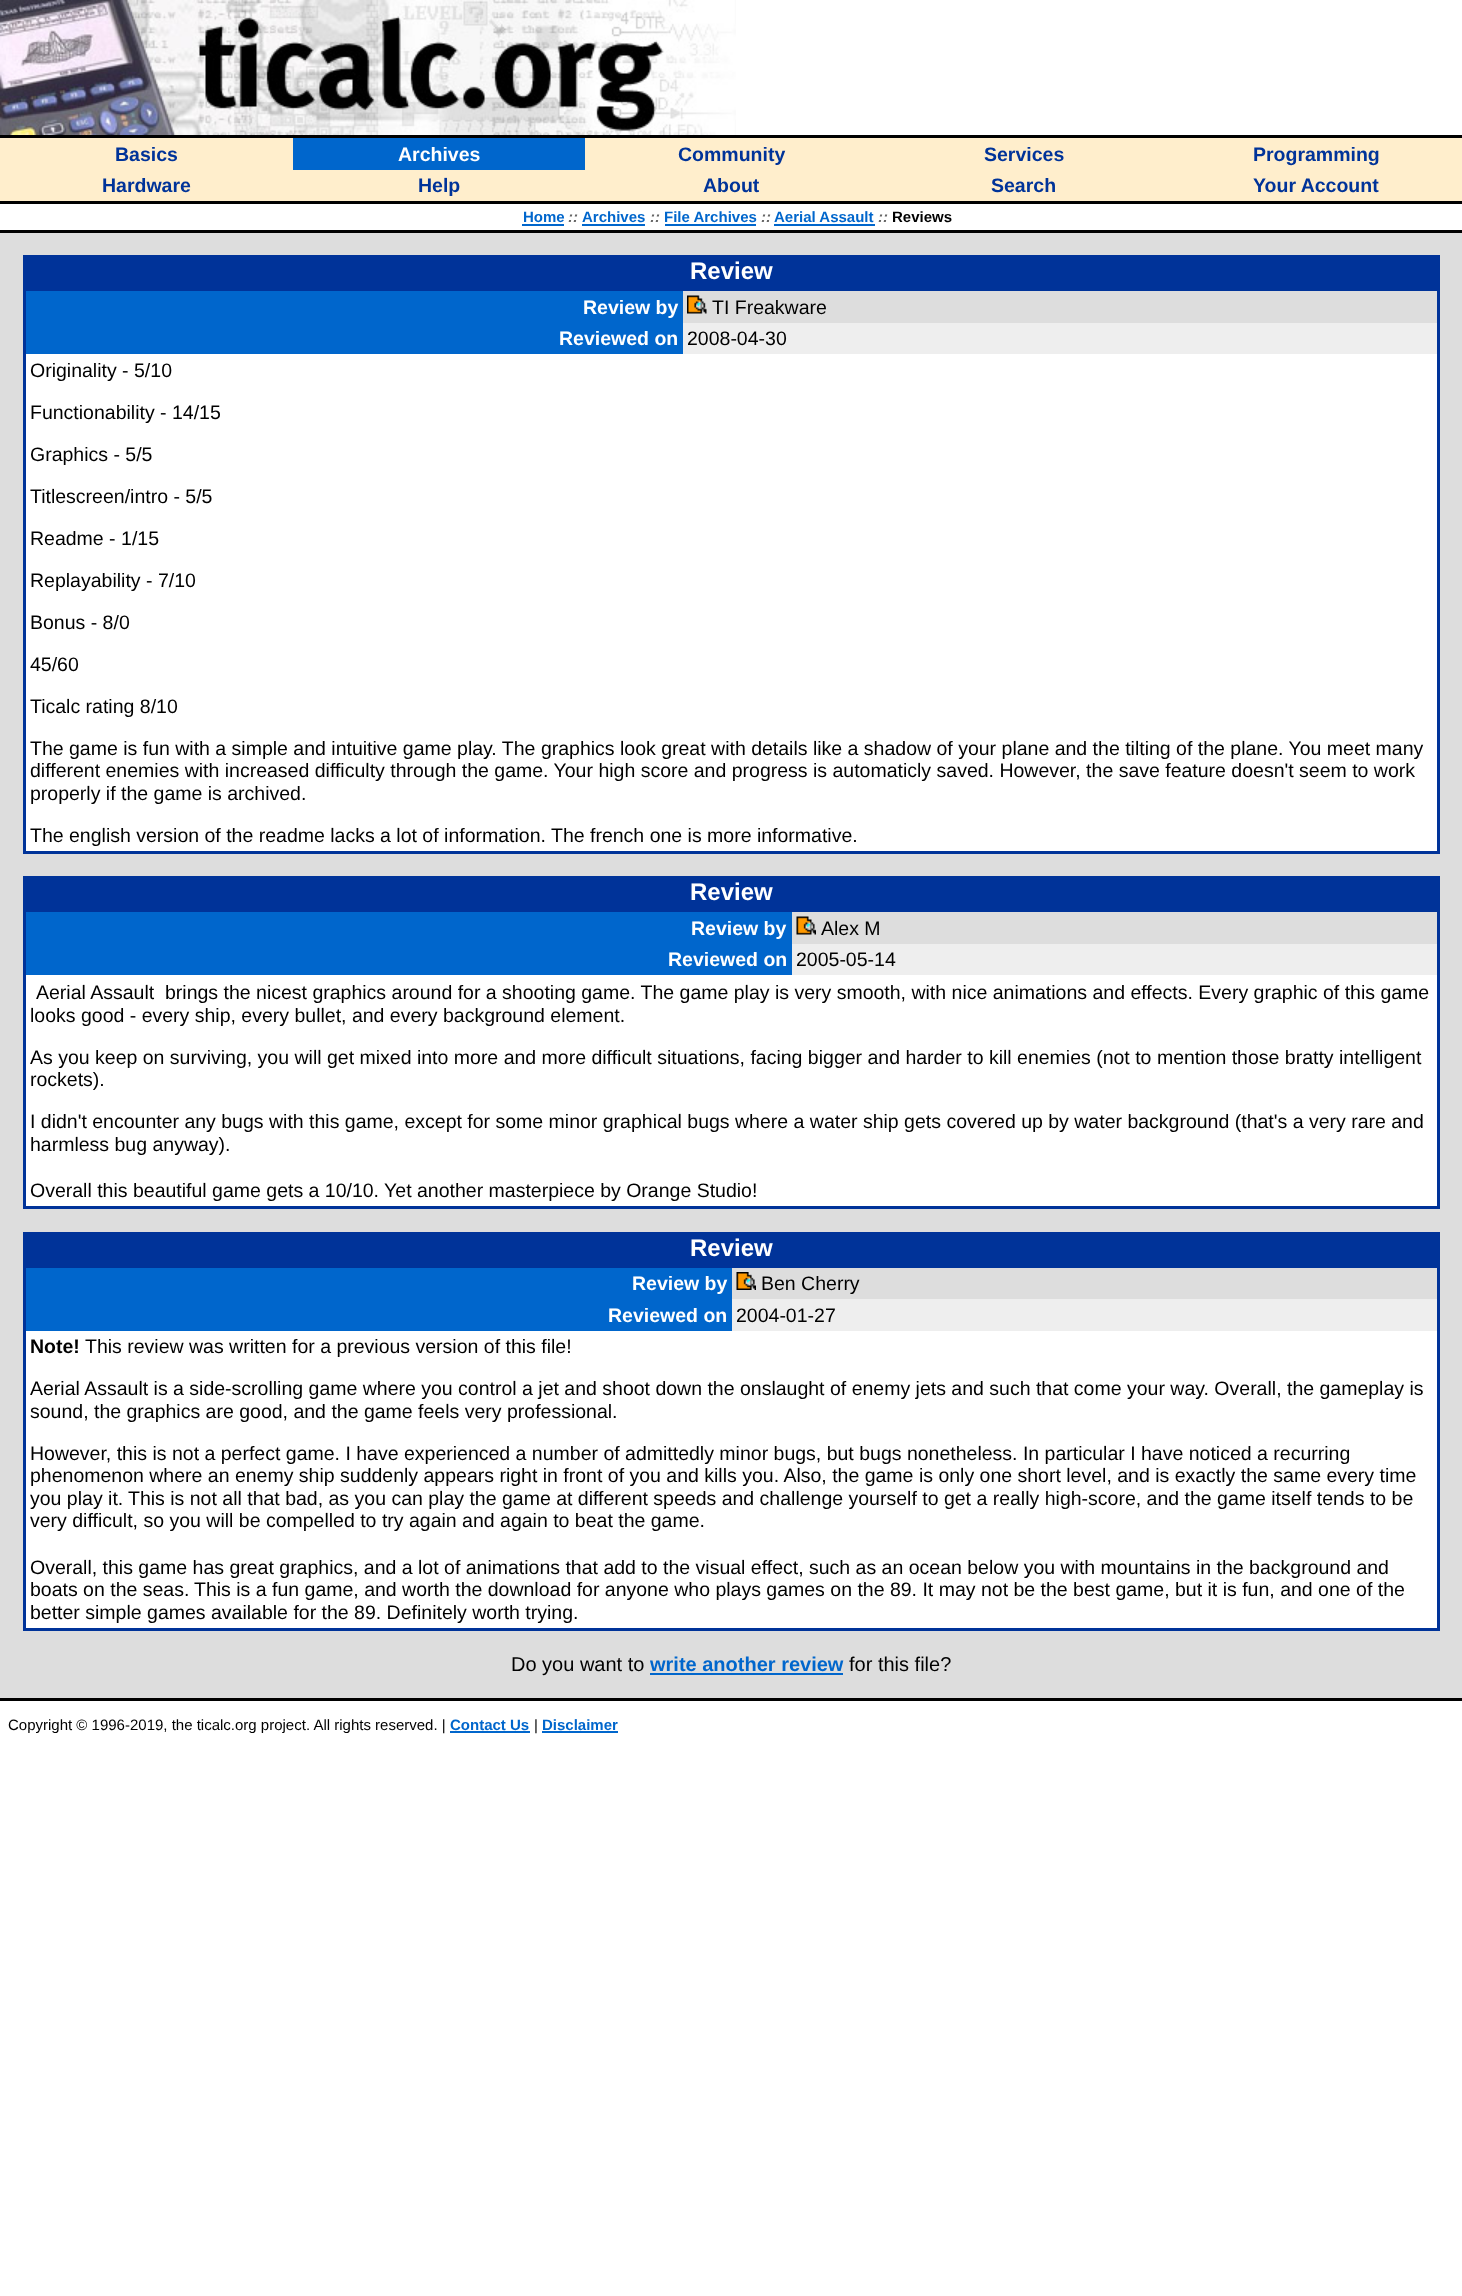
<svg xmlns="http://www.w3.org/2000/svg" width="1462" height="2296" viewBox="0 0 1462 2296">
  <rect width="100%" height="100%" fill="rgb(255,255,255)"/>
  <image x="0" y="0" width="736" height="135" href="pic1.png"/>
  <rect x="0" y="135" width="1462" height="3" fill="rgb(0,0,0)"/>
  <rect x="0" y="138" width="1462" height="63" fill="rgb(255,238,204)"/>
  <text x="115" y="161" font-family="Liberation Sans" font-size="19.5" font-weight="bold" fill="rgb(0,51,153)">Basics</text>
  <rect x="293" y="138" width="292" height="32" fill="rgb(0,102,204)"/>
  <text x="398" y="161" font-family="Liberation Sans" font-size="19.5" font-weight="bold" fill="rgb(255,255,255)">Archives</text>
  <g font-family="Liberation Sans" font-size="19.5" font-weight="bold" fill="rgb(0,51,153)">
    <text x="678" y="161">Community</text>
    <text x="984" y="161">Services</text>
    <text x="1253" y="161">Programming</text>
    <text x="102" y="192">Hardware</text>
    <text x="418" y="192">Help</text>
    <text x="703" y="192">About</text>
    <text x="991" y="192">Search</text>
    <text x="1253" y="192">Your Account</text>
  </g>
  <rect x="0" y="201" width="1462" height="3" fill="rgb(0,0,0)"/>
  <text x="523" y="222" font-family="Liberation Sans" font-size="15" font-weight="bold" fill="rgb(0,102,204)">Home</text>
  <rect x="522" y="224" width="42" height="2" fill="rgb(0,102,204)"/>
  <text x="568" y="222" font-family="Liberation Sans" font-size="15" font-weight="bold" font-style="italic" fill="rgb(102,102,102)">::</text>
  <text x="582" y="222" font-family="Liberation Sans" font-size="15" font-weight="bold" fill="rgb(0,102,204)">Archives</text>
  <rect x="582" y="224" width="63" height="2" fill="rgb(0,102,204)"/>
  <text x="650" y="222" font-family="Liberation Sans" font-size="15" font-weight="bold" font-style="italic" fill="rgb(102,102,102)">::</text>
  <text x="664" y="222" font-family="Liberation Sans" font-size="15" font-weight="bold" fill="rgb(0,102,204)">File Archives</text>
  <rect x="665" y="224" width="91" height="2" fill="rgb(0,102,204)"/>
  <text x="761" y="222" font-family="Liberation Sans" font-size="15" font-weight="bold" font-style="italic" fill="rgb(102,102,102)">::</text>
  <text x="774" y="222" font-family="Liberation Sans" font-size="15" font-weight="bold" fill="rgb(0,102,204)">Aerial Assault</text>
  <rect x="774" y="224" width="101" height="2" fill="rgb(0,102,204)"/>
  <text x="878" y="222" font-family="Liberation Sans" font-size="15" font-weight="bold" font-style="italic" fill="rgb(102,102,102)">::</text>
  <text x="892" y="222" font-family="Liberation Sans" font-size="15" font-weight="bold" fill="rgb(0,0,0)">Reviews</text>
  <rect x="0" y="230" width="1462" height="3" fill="rgb(0,0,0)"/>
  <rect x="0" y="233" width="1462" height="1465" fill="rgb(221,221,221)"/>
  <rect x="23" y="255" width="1417" height="599" fill="rgb(0,51,153)"/>
  <text x="690" y="279" font-family="Liberation Sans" font-size="24" font-weight="bold" fill="rgb(255,255,255)">Review</text>
  <rect x="26" y="291" width="657" height="63" fill="rgb(0,102,204)"/>
  <text x="583" y="314" font-family="Liberation Sans" font-size="19.5" font-weight="bold" fill="rgb(255,255,255)">Review by</text>
  <rect x="683" y="291" width="754" height="32" fill="rgb(221,221,221)"/>
  <image x="687" y="295" width="20" height="19" href="pic2.png"/>
  <text x="712" y="314" font-family="Liberation Sans" font-size="19.5" fill="rgb(0,0,0)">TI Freakware</text>
  <text x="559" y="345" font-family="Liberation Sans" font-size="19.5" font-weight="bold" fill="rgb(255,255,255)">Reviewed on</text>
  <rect x="683" y="323" width="754" height="31" fill="rgb(238,238,238)"/>
  <text x="687" y="345" font-family="Liberation Sans" font-size="19.5" fill="rgb(0,0,0)">2008-04-30</text>
  <rect x="26" y="354" width="1411" height="497" fill="rgb(255,255,255)"/>
  <g font-family="Liberation Sans" font-size="19.5" fill="rgb(0,0,0)">
    <text x="30" y="377">Originality - 5/10</text>
    <text x="30" y="419">Functionability - 14/15</text>
    <text x="30" y="461">Graphics - 5/5</text>
    <text x="30" y="503">Titlescreen/intro - 5/5</text>
    <text x="30" y="545">Readme - 1/15</text>
    <text x="30" y="587">Replayability - 7/10</text>
    <text x="30" y="629">Bonus - 8/0</text>
    <text x="30" y="671">45/60</text>
    <text x="30" y="713">Ticalc rating 8/10</text>
    <text>
      <tspan x="30" y="755">The game is fun with a simple and intuitive game play. The graphics look great with details like a shadow of your plane and the tilting of the plane. You meet many</tspan>
      <tspan x="30" y="777">different enemies with increased difficulty through the game. Your high score and progress is automaticly saved. However, the save feature doesn't seem to work</tspan>
      <tspan x="30" y="800">properly if the game is archived.</tspan>
    </text>
    <text x="30" y="842">The english version of the readme lacks a lot of information. The french one is more informative.</text>
  </g>
  <rect x="23" y="876" width="1417" height="333" fill="rgb(0,51,153)"/>
  <text x="690" y="900" font-family="Liberation Sans" font-size="24" font-weight="bold" fill="rgb(255,255,255)">Review</text>
  <rect x="26" y="912" width="766" height="63" fill="rgb(0,102,204)"/>
  <text x="691" y="935" font-family="Liberation Sans" font-size="19.5" font-weight="bold" fill="rgb(255,255,255)">Review by</text>
  <rect x="792" y="912" width="645" height="32" fill="rgb(221,221,221)"/>
  <image x="796" y="916" width="20" height="19" href="pic3.png"/>
  <text x="821" y="935" font-family="Liberation Sans" font-size="19.5" fill="rgb(0,0,0)">Alex M</text>
  <text x="668" y="966" font-family="Liberation Sans" font-size="19.5" font-weight="bold" fill="rgb(255,255,255)">Reviewed on</text>
  <rect x="792" y="944" width="645" height="31" fill="rgb(238,238,238)"/>
  <text x="796" y="966" font-family="Liberation Sans" font-size="19.5" fill="rgb(0,0,0)">2005-05-14</text>
  <rect x="26" y="975" width="1411" height="231" fill="rgb(255,255,255)"/>
  <g font-family="Liberation Sans" font-size="19.5" fill="rgb(0,0,0)">
    <text x="36" y="999">Aerial Assault</text>
    <text x="165" y="999">brings the nicest graphics around for a shooting game. The game play is very smooth, with nice animations and effects. Every graphic of this game</text>
    <text x="30" y="1022">looks good - every ship, every bullet, and every background element.</text>
    <text>
      <tspan x="30" y="1064">As you keep on surviving, you will get mixed into more and more difficult situations, facing bigger and harder to kill enemies (not to mention those bratty intelligent</tspan>
      <tspan x="30" y="1086">rockets).</tspan>
    </text>
    <text>
      <tspan x="30" y="1128">I didn't encounter any bugs with this game, except for some minor graphical bugs where a water ship gets covered up by water background (that's a very rare and</tspan>
      <tspan x="30" y="1151">harmless bug anyway).</tspan>
    </text>
    <text x="30" y="1197">Overall this beautiful game gets a 10/10. Yet another masterpiece by Orange Studio!</text>
  </g>
  <rect x="23" y="1232" width="1417" height="399" fill="rgb(0,51,153)"/>
  <text x="690" y="1256" font-family="Liberation Sans" font-size="24" font-weight="bold" fill="rgb(255,255,255)">Review</text>
  <rect x="26" y="1268" width="706" height="63" fill="rgb(0,102,204)"/>
  <text x="632" y="1290" font-family="Liberation Sans" font-size="19.5" font-weight="bold" fill="rgb(255,255,255)">Review by</text>
  <rect x="732" y="1268" width="705" height="31" fill="rgb(221,221,221)"/>
  <image x="736" y="1272" width="20" height="18" href="pic4.png"/>
  <text x="761" y="1290" font-family="Liberation Sans" font-size="19.5" fill="rgb(0,0,0)">Ben Cherry</text>
  <text x="608" y="1322" font-family="Liberation Sans" font-size="19.5" font-weight="bold" fill="rgb(255,255,255)">Reviewed on</text>
  <rect x="732" y="1299" width="705" height="32" fill="rgb(238,238,238)"/>
  <text x="736" y="1322" font-family="Liberation Sans" font-size="19.5" fill="rgb(0,0,0)">2004-01-27</text>
  <rect x="26" y="1331" width="1411" height="297" fill="rgb(255,255,255)"/>
  <text x="30" y="1353" font-family="Liberation Sans" font-size="19.5" font-weight="bold" fill="rgb(0,0,0)">Note!</text>
  <g font-family="Liberation Sans" font-size="19.5" fill="rgb(0,0,0)">
    <text x="85" y="1353">This review was written for a previous version of this file!</text>
    <text>
      <tspan x="30" y="1395">Aerial Assault is a side-scrolling game where you control a jet and shoot down the onslaught of enemy jets and such that come your way. Overall, the gameplay is</tspan>
      <tspan x="30" y="1418">sound, the graphics are good, and the game feels very professional.</tspan>
    </text>
    <text>
      <tspan x="30" y="1460">However, this is not a perfect game. I have experienced a number of admittedly minor bugs, but bugs nonetheless. In particular I have noticed a recurring</tspan>
      <tspan x="30" y="1482">phenomenon where an enemy ship suddenly appears right in front of you and kills you. Also, the game is only one short level, and is exactly the same every time</tspan>
      <tspan x="30" y="1505">you play it.</tspan>
    </text>
    <text x="128" y="1505">This is not all that bad, as you can play the game at different speeds and challenge yourself to get a really high-score, and the game itself tends to be</text>
    <text x="30" y="1527">very difficult, so you will be compelled to try again and again to beat the game.</text>
    <text>
      <tspan x="30" y="1574">Overall, this game has great graphics, and a lot of animations that add to the visual effect, such as an ocean below you with mountains in the background and</tspan>
      <tspan x="30" y="1596">boats on the seas.</tspan>
    </text>
    <text x="194" y="1596">This is a fun game, and worth the download for anyone who plays games on the 89. It may not be the best game, but it is fun, and one of the</text>
    <text x="30" y="1619">better simple games available for the 89. Definitely worth trying.</text>
  </g>
  <text x="511" y="1671" font-family="Liberation Sans" font-size="20" fill="rgb(0,0,0)">Do you want to</text>
  <text x="650" y="1671" font-family="Liberation Sans" font-size="20" font-weight="bold" fill="rgb(0,102,204)">write another review</text>
  <rect x="650" y="1673" width="193" height="2" fill="rgb(0,102,204)"/>
  <text x="849" y="1671" font-family="Liberation Sans" font-size="20" fill="rgb(0,0,0)">for this file?</text>
  <rect x="0" y="1698" width="1462" height="3" fill="rgb(0,0,0)"/>
  <text x="8" y="1730" font-family="Liberation Sans" font-size="15" fill="rgb(0,0,0)">Copyright © 1996-2019, the ticalc.org project. All rights reserved. |</text>
  <text x="450" y="1730" font-family="Liberation Sans" font-size="15" font-weight="bold" fill="rgb(0,102,204)">Contact Us</text>
  <rect x="450" y="1731" width="80" height="2" fill="rgb(0,102,204)"/>
  <text x="534" y="1730" font-family="Liberation Sans" font-size="15" fill="rgb(0,0,0)">|</text>
  <text x="542" y="1730" font-family="Liberation Sans" font-size="15" font-weight="bold" fill="rgb(0,102,204)">Disclaimer</text>
  <rect x="542" y="1731" width="76" height="2" fill="rgb(0,102,204)"/>
</svg>
